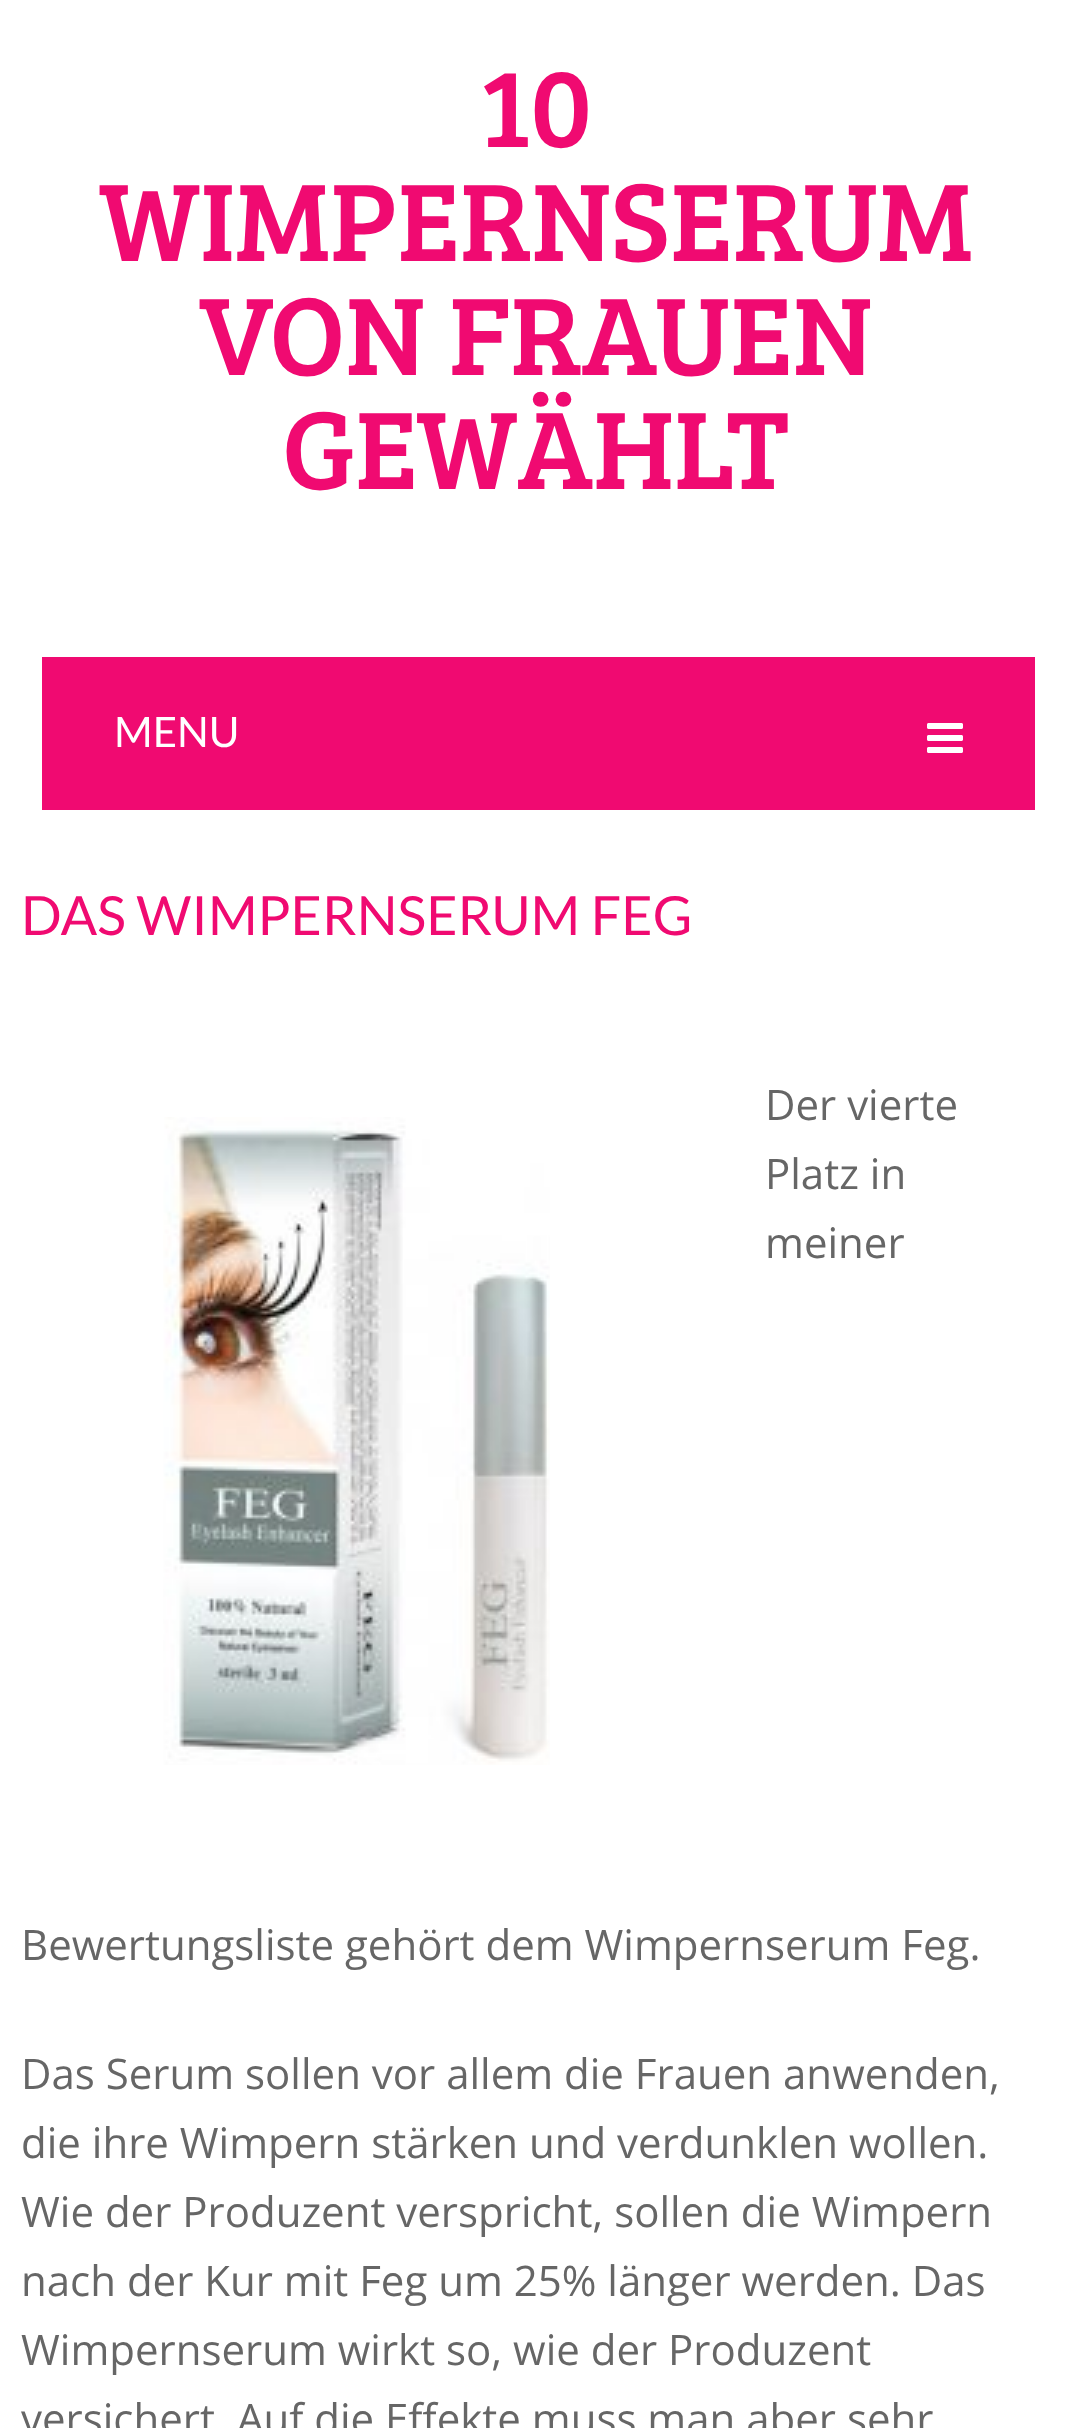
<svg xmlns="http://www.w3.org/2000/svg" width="1070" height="2428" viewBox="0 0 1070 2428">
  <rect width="100%" height="100%" fill="rgb(255,255,255)"/>
  <g font-family="Bree Serif" font-size="114" fill="rgb(240,10,113)">
    <text x="479" y="147">10</text>
    <text x="99" y="261">WIMPERNSERUM</text>
    <text x="199" y="375">VON FRAUEN</text>
    <text x="282" y="489">GEWÄHLT</text>
  </g>
  <rect x="42" y="657" width="993" height="153" fill="rgb(240,10,113)"/>
  <text x="114" y="747" font-family="Lato" font-size="42" fill="rgb(255,255,255)">MENU</text>
  <image x="927" y="723" width="36" height="30" href="pic1.png"/>
  <text x="21" y="935" font-family="Lato" font-size="54" fill="rgb(240,10,113)">DAS WIMPERNSERUM FEG</text>
  <g font-family="Open Sans" font-size="42" fill="rgb(102,102,102)">
    <text>
      <tspan x="765" y="1120">Der vierte</tspan>
      <tspan x="765" y="1189">Platz in</tspan>
      <tspan x="765" y="1258">meiner</tspan>
    </text>
    <text x="21" y="1960">Bewertungsliste gehört dem Wimpernserum Feg.</text>
  </g>
  <image x="163" y="1117" width="387" height="648" href="pic2.png"/>
  <g font-family="Open Sans" font-size="42" fill="rgb(102,102,102)">
    <text>
      <tspan x="21" y="2089">Das Serum sollen vor allem die Frauen anwenden,</tspan>
      <tspan x="21" y="2158">die ihre Wimpern stärken und verdunklen wollen.</tspan>
      <tspan x="21" y="2227">Wie der Produzent verspricht, sollen die Wimpern</tspan>
      <tspan x="21" y="2296">nach der Kur mit Feg um 25% länger werden. Das</tspan>
      <tspan x="21" y="2365">Wimpernserum wirkt so, wie der Produzent</tspan>
      <tspan x="21" y="2434">versichert. Auf die Effekte muss man aber sehr</tspan>
    </text>
  </g>
</svg>
